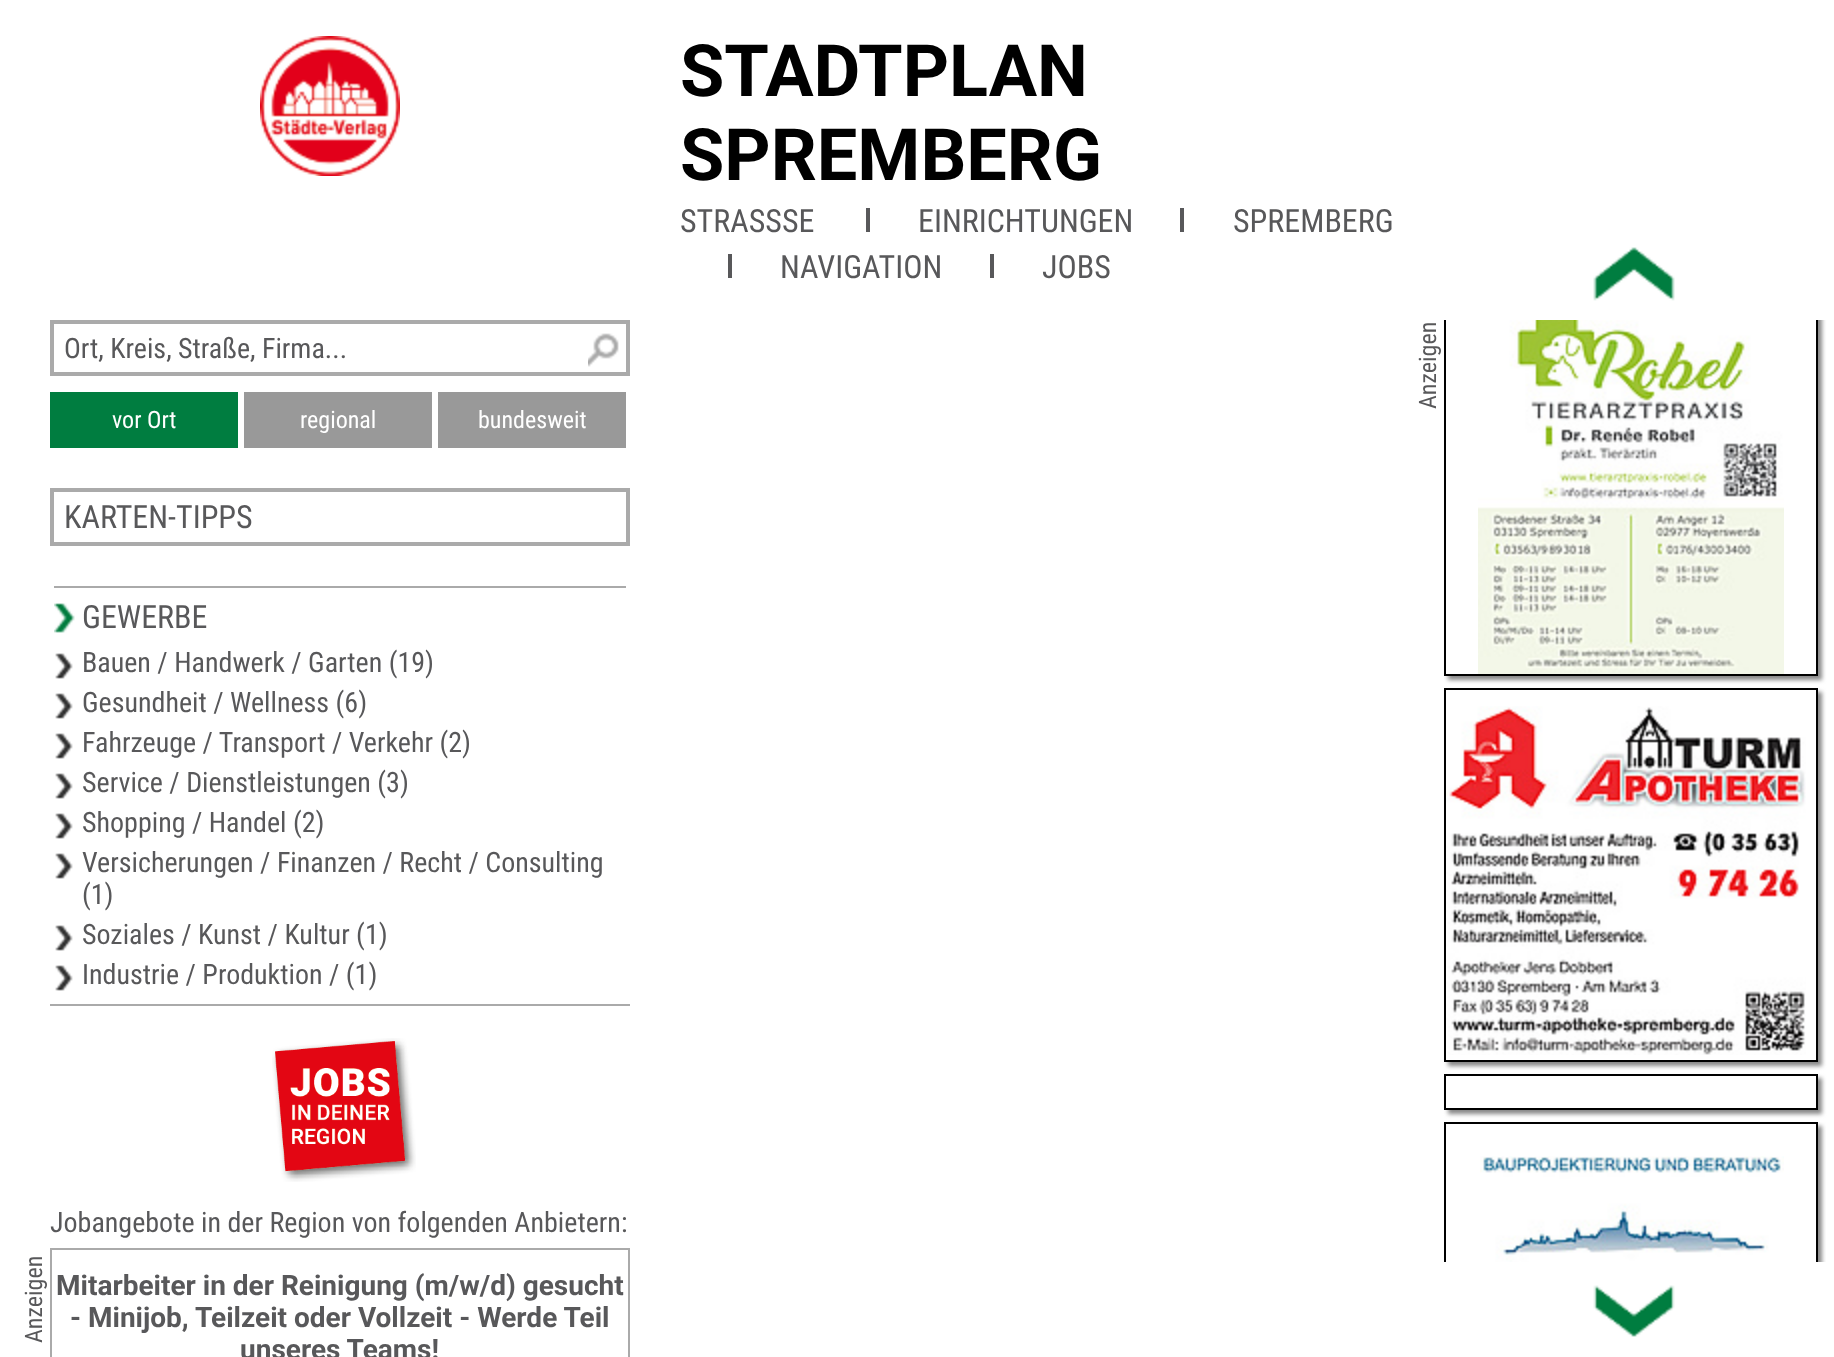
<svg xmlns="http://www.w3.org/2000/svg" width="1834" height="1357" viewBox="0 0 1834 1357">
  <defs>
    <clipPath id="clip1"><rect x="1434" y="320" width="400" height="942"/></clipPath>
    <clipPath id="clip2"><path d="M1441 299H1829V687H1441ZM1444 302H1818V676H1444Z" clip-rule="evenodd"/></clipPath>
    <clipPath id="clip3"><rect x="1434" y="320" width="400" height="942"/></clipPath>
    <clipPath id="clip4"><path d="M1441 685H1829V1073H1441ZM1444 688H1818V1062H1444Z" clip-rule="evenodd"/></clipPath>
    <clipPath id="clip5"><path d="M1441 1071H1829V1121H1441ZM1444 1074H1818V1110H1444Z" clip-rule="evenodd"/></clipPath>
    <clipPath id="clip6"><rect x="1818" y="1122" width="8" height="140"/></clipPath>
  </defs>
  <rect width="100%" height="100%" fill="rgb(255,255,255)"/>
  <image x="260" y="36" width="140" height="140" href="pic1.png"/>
  <g font-family="Roboto" font-size="72" font-weight="bold" fill="rgb(0,0,0)">
    <text>
      <tspan x="680" y="96">STADTPLAN</tspan>
      <tspan x="680" y="180">SPREMBERG</tspan>
    </text>
  </g>
  <text x="680" y="232" font-family="Roboto Condensed" font-size="32" fill="rgb(88,88,90)">STRASSSE</text>
  <rect x="866" y="208" width="4" height="24" fill="rgb(88,88,90)"/>
  <text x="918" y="232" font-family="Roboto Condensed" font-size="32" fill="rgb(88,88,90)">EINRICHTUNGEN</text>
  <rect x="1180" y="208" width="4" height="24" fill="rgb(88,88,90)"/>
  <text x="1233" y="232" font-family="Roboto Condensed" font-size="32" fill="rgb(88,88,90)">SPREMBERG</text>
  <rect x="728" y="254" width="4" height="24" fill="rgb(88,88,90)"/>
  <text x="780" y="278" font-family="Roboto Condensed" font-size="32" fill="rgb(88,88,90)">NAVIGATION</text>
  <rect x="990" y="254" width="4" height="24" fill="rgb(88,88,90)"/>
  <text x="1042" y="278" font-family="Roboto Condensed" font-size="32" fill="rgb(88,88,90)">JOBS</text>
  <image x="588" y="333" width="31" height="34" href="pic2.png"/>
  <rect x="52" y="322" width="576" height="52" fill="none" stroke="rgb(170,170,170)" stroke-width="4"/>
  <text x="64" y="358" font-family="Roboto Condensed" font-size="28" fill="rgb(88,88,90)">Ort, Kreis, Straße, Firma...</text>
  <rect x="50" y="392" width="188" height="56" fill="rgb(0,125,64)"/>
  <text x="112" y="428" font-family="Roboto Condensed" font-size="24" fill="rgb(255,255,255)">vor Ort</text>
  <rect x="244" y="392" width="188" height="56" fill="rgb(153,153,153)"/>
  <text x="300" y="428" font-family="Roboto Condensed" font-size="24" fill="rgb(255,255,255)">regional</text>
  <rect x="438" y="392" width="188" height="56" fill="rgb(153,153,153)"/>
  <text x="478" y="428" font-family="Roboto Condensed" font-size="24" fill="rgb(255,255,255)">bundesweit</text>
  <rect x="52" y="490" width="576" height="54" fill="none" stroke="rgb(170,170,170)" stroke-width="4"/>
  <text x="64" y="528" font-family="Roboto Condensed" font-size="32" fill="rgb(88,88,90)">KARTEN-TIPPS</text>
  <image x="54" y="603" width="21" height="30" href="pic3.png"/>
  <rect x="54" y="586" width="572" height="2" fill="rgb(170,170,170)"/>
  <text x="82" y="628" font-family="Roboto Condensed" font-size="32" fill="rgb(88,88,90)">GEWERBE</text>
  <image x="55" y="653" width="18" height="26" href="pic4.png"/>
  <text x="82" y="672" font-family="Roboto Condensed" font-size="28" fill="rgb(88,88,90)">Bauen / Handwerk / Garten (19)</text>
  <image x="55" y="693" width="18" height="26" href="pic4.png"/>
  <text x="82" y="712" font-family="Roboto Condensed" font-size="28" fill="rgb(88,88,90)">Gesundheit / Wellness (6)</text>
  <image x="55" y="733" width="18" height="26" href="pic4.png"/>
  <text x="82" y="752" font-family="Roboto Condensed" font-size="28" fill="rgb(88,88,90)">Fahrzeuge / Transport / Verkehr (2)</text>
  <image x="55" y="773" width="18" height="26" href="pic4.png"/>
  <text x="82" y="792" font-family="Roboto Condensed" font-size="28" fill="rgb(88,88,90)">Service / Dienstleistungen (3)</text>
  <image x="55" y="813" width="18" height="26" href="pic4.png"/>
  <text x="82" y="832" font-family="Roboto Condensed" font-size="28" fill="rgb(88,88,90)">Shopping / Handel (2)</text>
  <image x="55" y="853" width="18" height="26" href="pic4.png"/>
  <g font-family="Roboto Condensed" font-size="28" fill="rgb(88,88,90)">
    <text>
      <tspan x="82" y="872">Versicherungen / Finanzen / Recht / Consulting</tspan>
      <tspan x="82" y="904">(1)</tspan>
    </text>
  </g>
  <image x="55" y="925" width="18" height="26" href="pic4.png"/>
  <text x="82" y="944" font-family="Roboto Condensed" font-size="28" fill="rgb(88,88,90)">Soziales / Kunst / Kultur (1)</text>
  <image x="55" y="965" width="18" height="26" href="pic4.png"/>
  <g font-family="Roboto Condensed" font-size="28" fill="rgb(88,88,90)">
    <text x="82" y="984">Industrie / Produktion / (1)</text>
    <text x="50" y="1232">Jobangebote in der Region von folgenden Anbietern:</text>
  </g>
  <image x="272" y="1038" width="144" height="144" href="pic5.png"/>
  <rect x="50" y="1004" width="580" height="2" fill="rgb(170,170,170)"/>
  <text x="42" y="1343" transform="rotate(-90 42 1343)" font-family="Roboto Condensed" font-size="24" fill="rgb(88,88,90)">Anzeigen</text>
  <rect x="51" y="1249" width="578" height="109" fill="none" stroke="rgb(170,170,170)" stroke-width="2"/>
  <g font-family="Roboto" font-size="28" font-weight="bold" fill="rgb(88,88,90)">
    <text x="56" y="1295">Mitarbeiter in der Reinigung (m/w/d) gesucht</text>
    <text x="70" y="1327">- Minijob, Teilzeit oder Vollzeit - Werde Teil</text>
    <text x="240" y="1359">unseres Teams!</text>
  </g>
  <image x="1593" y="247" width="82" height="54" href="pic6.png"/>
  <text x="1436" y="409" transform="rotate(-90 1436 409)" font-family="Roboto Condensed" font-size="24" fill="rgb(88,88,90)">Anzeigen</text>
  <g clip-path="url(#clip1)">
    <g clip-path="url(#clip2)">
      <rect x="1448" y="306" width="374" height="374" fill="rgb(136,136,136)" filter="blur(2px)"/>
    </g>
  </g>
  <g clip-path="url(#clip3)">
    <rect x="1445" y="303" width="372" height="372" fill="none" stroke="rgb(0,0,0)" stroke-width="2"/>
  </g>
  <image x="1478" y="320" width="306" height="354" href="pic7.png"/>
  <g clip-path="url(#clip4)">
    <rect x="1448" y="692" width="374" height="374" fill="rgb(136,136,136)" filter="blur(2px)"/>
  </g>
  <rect x="1445" y="689" width="372" height="372" fill="none" stroke="rgb(0,0,0)" stroke-width="2"/>
  <image x="1446" y="706" width="360" height="349" href="pic8.png"/>
  <g clip-path="url(#clip5)">
    <rect x="1448" y="1078" width="374" height="36" fill="rgb(136,136,136)" filter="blur(2px)"/>
  </g>
  <rect x="1445" y="1075" width="372" height="34" fill="none" stroke="rgb(0,0,0)" stroke-width="2"/>
  <image x="1593" y="1285" width="82" height="52" href="pic10.png"/>
  <g clip-path="url(#clip1)">
    <g clip-path="url(#clip6)">
      <rect x="1448" y="1126" width="374" height="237" fill="rgb(136,136,136)" filter="blur(2px)"/>
    </g>
  </g>
  <g clip-path="url(#clip3)">
    <rect x="1445" y="1123" width="372" height="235" fill="none" stroke="rgb(0,0,0)" stroke-width="2"/>
  </g>
  <image x="1480" y="1156" width="304" height="106" href="pic9.png"/>
</svg>
